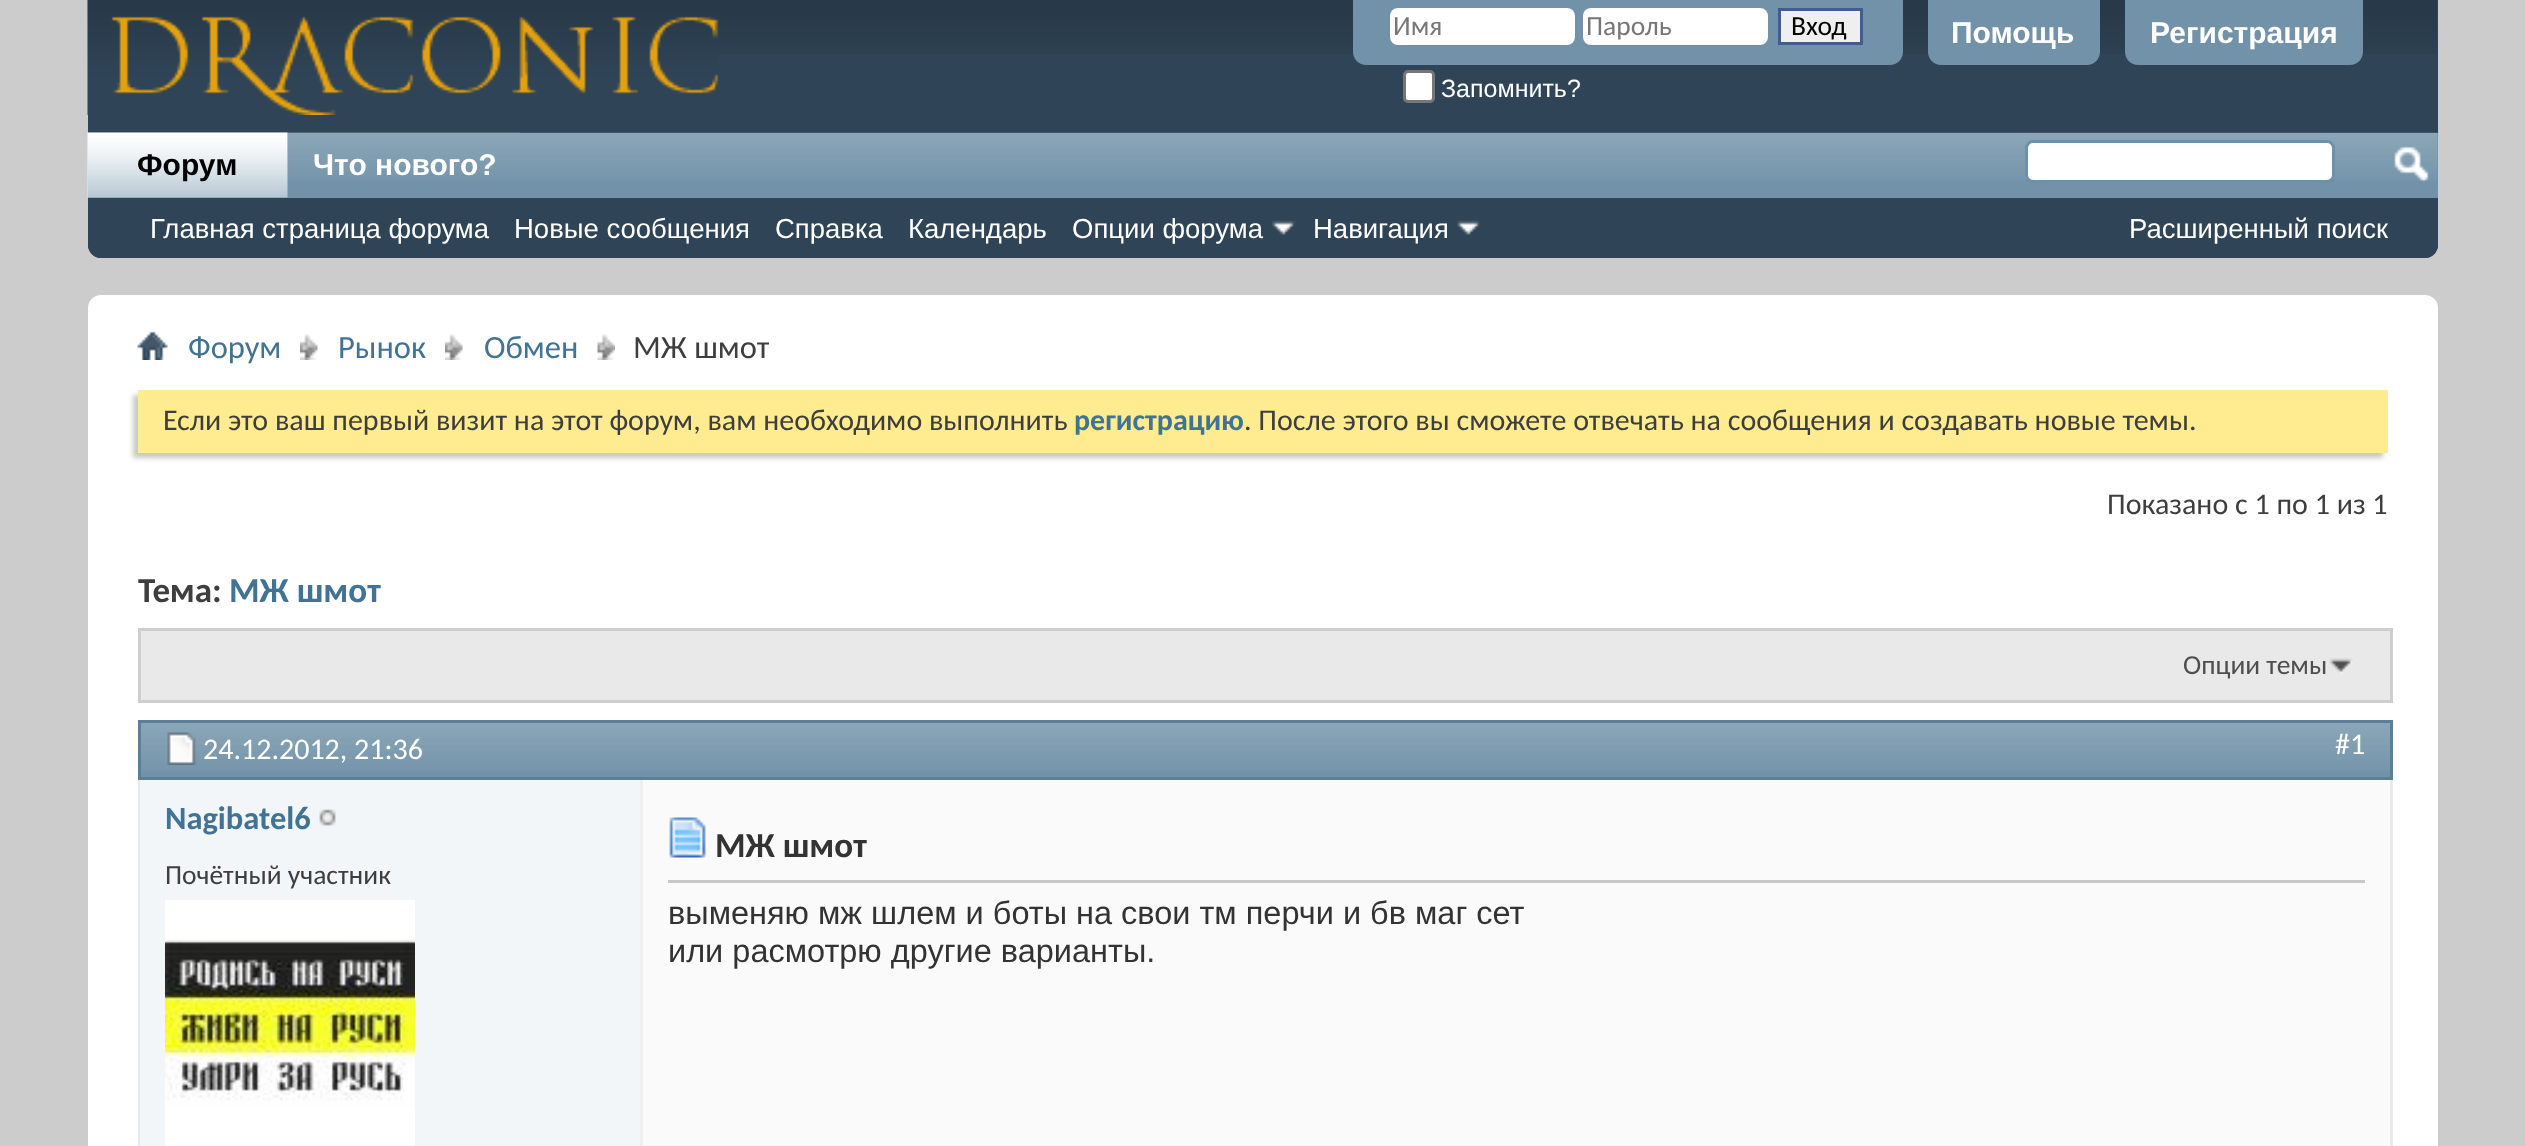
<svg xmlns="http://www.w3.org/2000/svg" width="2525" height="1146" viewBox="0 0 2525 1146">
  <rect width="100%" height="100%" fill="rgb(204,204,204)"/>
  <path d="M88 0H2438V245C2438 252 2432 258 2425 258H101C94 258 88 252 88 245Z" fill="rgb(47,68,86)"/>
  <image x="87" y="0" width="2350" height="54" href="pic1.png"/>
  <image x="87" y="0" width="632" height="115" href="pic2.png"/>
  <path d="M1353 0H1903V52C1903 59 1897 65 1890 65H1366C1359 65 1353 59 1353 52Z" fill="rgb(113,146,168)"/>
  <rect x="1390" y="8" width="185" height="37" rx="8" fill="rgb(255,255,255)"/>
  <text x="1393" y="35" font-family="Carlito" font-size="27.5" fill="rgb(119,119,119)">Имя</text>
  <rect x="1583" y="8" width="185" height="37" rx="8" fill="rgb(255,255,255)"/>
  <text x="1586" y="35" font-family="Carlito" font-size="27.5" fill="rgb(119,119,119)">Пароль</text>
  <rect x="1779.5" y="9.5" width="82" height="34" fill="rgb(239,239,239)" stroke="rgb(65,93,141)" stroke-width="3"/>
  <text x="1791" y="35" font-family="Carlito" font-size="27.5" fill="rgb(0,0,0)">Вход</text>
  <rect x="1404.5" y="71.5" width="29" height="30" rx="3.5" fill="rgb(255,255,255)" stroke="rgb(118,118,118)" stroke-width="3"/>
  <text x="1441" y="97" font-family="Liberation Sans" font-size="25" fill="rgb(255,255,255)">Запомнить?</text>
  <path d="M1928 0H2100V52C2100 59 2094 65 2087 65H1941C1934 65 1928 59 1928 52Z" fill="rgb(113,146,168)"/>
  <text x="1951" y="43" font-family="Liberation Sans" font-size="30" font-weight="bold" fill="rgb(255,255,255)">Помощь</text>
  <path d="M2125 0H2363V52C2363 59 2357 65 2350 65H2138C2131 65 2125 59 2125 52Z" fill="rgb(113,146,168)"/>
  <text x="2150" y="43" font-family="Liberation Sans" font-size="30" font-weight="bold" fill="rgb(255,255,255)">Регистрация</text>
  <path d="M88 133H2438V245C2438 252 2432 258 2425 258H101C94 258 88 252 88 245Z" fill="rgb(47,68,86)"/>
  <rect x="520" y="133" width="1918" height="65" fill="rgb(113,146,168)"/>
  <image x="87" y="132" width="2351" height="49" href="pic3.png"/>
  <rect x="288" y="133" width="232" height="65" fill="rgb(113,146,168)"/>
  <image x="287" y="132" width="233" height="49" href="pic5.png"/>
  <rect x="88" y="133" width="200" height="65" fill="rgb(113,146,168)"/>
  <image x="87" y="132" width="201" height="66" href="pic4.png"/>
  <text x="137" y="175" font-family="Liberation Sans" font-size="30" font-weight="bold" fill="rgb(0,0,0)">Форум</text>
  <text x="313" y="175" font-family="Liberation Sans" font-size="30" font-weight="bold" fill="rgb(255,255,255)">Что нового?</text>
  <g font-family="Liberation Sans" font-size="27.5" fill="rgb(255,255,255)">
    <text x="150" y="238">Главная страница форума</text>
    <text x="514" y="238">Новые сообщения</text>
    <text x="775" y="238">Справка</text>
    <text x="908" y="238">Календарь</text>
    <text x="1072" y="238">Опции форума</text>
  </g>
  <image x="1272" y="220" width="24" height="15" href="pic6.png"/>
  <text x="1313" y="238" font-family="Liberation Sans" font-size="27.5" fill="rgb(255,255,255)">Навигация</text>
  <image x="1457" y="220" width="24" height="15" href="pic6.png"/>
  <rect x="2026.5" y="141.5" width="307" height="40" rx="6.5" fill="rgb(255,255,255)" stroke="rgb(107,145,171)" stroke-width="3"/>
  <image x="2394" y="146" width="35" height="37" href="pic7.png"/>
  <text x="2129" y="238" font-family="Liberation Sans" font-size="27.5" fill="rgb(255,255,255)">Расширенный поиск</text>
  <rect x="88" y="295" width="2350" height="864" rx="13" fill="rgb(255,255,255)"/>
  <image x="137" y="331" width="31" height="29" href="pic8.png"/>
  <image x="300" y="334" width="18" height="26" href="pic9.png"/>
  <text x="188" y="358" font-family="Carlito" font-size="32.5" fill="rgb(65,115,148)">Форум</text>
  <image x="445" y="334" width="18" height="26" href="pic10.png"/>
  <text x="338" y="358" font-family="Carlito" font-size="32.5" fill="rgb(65,115,148)">Рынок</text>
  <image x="597" y="334" width="18" height="26" href="pic11.png"/>
  <text x="484" y="358" font-family="Carlito" font-size="32.5" fill="rgb(65,115,148)">Обмен</text>
  <text x="633" y="358" font-family="Carlito" font-size="32.5" fill="rgb(62,62,62)">МЖ шмот</text>
  <rect x="133" y="395" width="2250" height="63" fill="rgb(200,200,200)" filter="blur(2.5px)"/>
  <rect x="138" y="390" width="2250" height="63" fill="rgb(255,235,144)"/>
  <text x="163" y="430" font-family="Carlito" font-size="30" fill="rgb(62,62,62)">Если это ваш первый визит на этот форум, вам необходимо выполнить</text>
  <text x="1074" y="430" font-family="Carlito" font-size="30" font-weight="bold" fill="rgb(65,115,148)">регистрацию</text>
  <g font-family="Carlito" font-size="30" fill="rgb(62,62,62)">
    <text x="1244" y="430">. После этого вы сможете отвечать на сообщения и создавать новые темы.</text>
    <text x="2107" y="514">Показано с 1 по 1 из 1</text>
  </g>
  <text x="138" y="602" font-family="Carlito" font-size="35" font-weight="bold" fill="rgb(62,62,62)">Тема:</text>
  <text x="229" y="602" font-family="Carlito" font-size="35" font-weight="bold" fill="rgb(65,115,148)">МЖ шмот</text>
  <rect x="139.5" y="629.5" width="2252" height="72" fill="rgb(233,233,233)" stroke="rgb(206,206,206)" stroke-width="3"/>
  <image x="2329" y="658" width="24" height="16" href="pic12.png"/>
  <text x="2183" y="674" font-family="Carlito" font-size="27.5" fill="rgb(78,78,78)">Опции темы</text>
  <rect x="139.5" y="721.5" width="2252" height="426" fill="none" stroke="rgb(233,233,233)" stroke-width="3"/>
  <rect x="141" y="723" width="2249" height="54" fill="rgb(113,146,168)"/>
  <image x="141" y="723" width="2249" height="48" href="pic13.png"/>
  <rect x="139.5" y="721.5" width="2252" height="57" fill="none" stroke="rgb(90,127,151)" stroke-width="3"/>
  <image x="167" y="732" width="29" height="33" href="pic14.png"/>
  <g font-family="Carlito" font-size="30" fill="rgb(255,255,255)">
    <text x="203" y="759">24.12.2012, 21:36</text>
    <text x="2335" y="754">#1</text>
  </g>
  <rect x="140" y="780" width="500" height="366" fill="rgb(242,246,248)"/>
  <text x="165" y="829" font-family="Carlito" font-size="32.5" font-weight="bold" fill="rgb(65,115,148)">Nagibatel6</text>
  <image x="319" y="809" width="17" height="17" href="pic15.png"/>
  <text x="165" y="884" font-family="Carlito" font-size="27.5" fill="rgb(62,62,62)">Почётный участник</text>
  <image x="165" y="900" width="250" height="246" href="pic16.png"/>
  <rect x="643" y="780" width="1747" height="366" fill="rgb(250,250,250)"/>
  <rect x="640" y="780" width="3" height="366" fill="rgb(239,239,239)"/>
  <rect x="668" y="880" width="1697" height="3" fill="rgb(200,200,200)"/>
  <image x="669" y="817" width="37" height="41" href="pic17.png"/>
  <text x="715" y="857" font-family="Carlito" font-size="35" font-weight="bold" fill="rgb(51,51,51)">МЖ шмот</text>
  <g font-family="Liberation Sans" font-size="32.5" fill="rgb(51,51,51)">
    <text>
      <tspan x="668" y="924">выменяю мж шлем и боты на свои тм перчи и бв маг сет</tspan>
      <tspan x="668" y="962">или расмотрю другие варианты.</tspan>
    </text>
  </g>
</svg>
